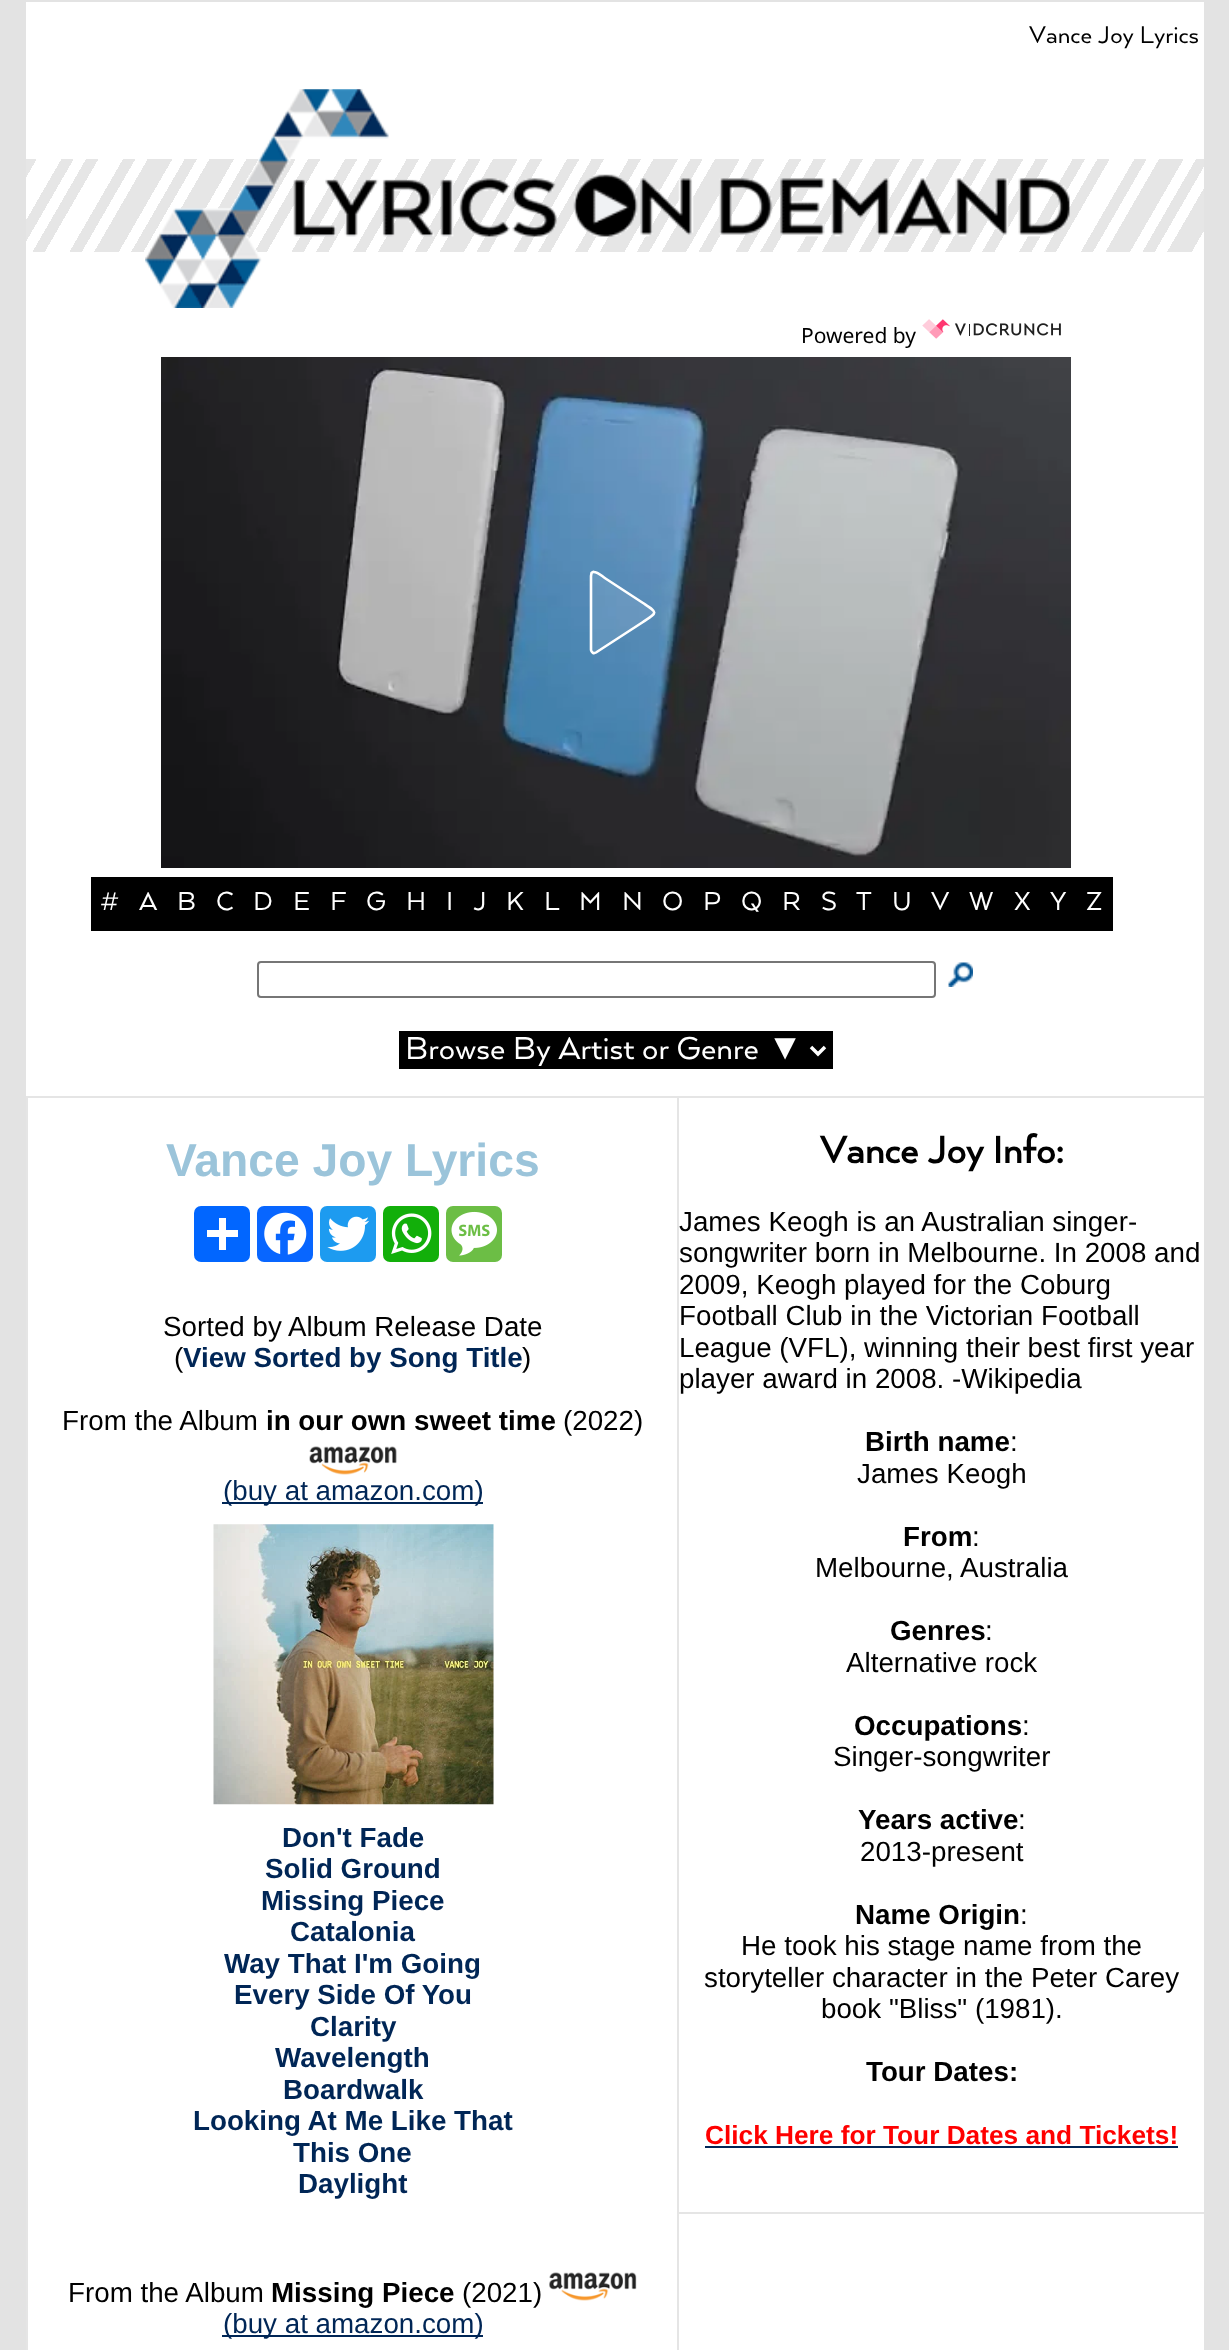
<svg xmlns="http://www.w3.org/2000/svg" width="1229" height="2350" viewBox="0 0 1229 2350">
  <defs>
    <linearGradient id="g1" gradientUnits="userSpaceOnUse" x1="1077" y1="472" x2="152" y2="-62"><stop offset="0" stop-color="rgb(255,255,255)"/><stop offset="0.01" stop-color="rgb(255,255,255)"/><stop offset="0.01" stop-color="rgb(230,230,230)"/><stop offset="0.02" stop-color="rgb(230,230,230)"/><stop offset="0.02" stop-color="rgb(255,255,255)"/><stop offset="0.02" stop-color="rgb(230,230,230)"/><stop offset="0.03" stop-color="rgb(230,230,230)"/><stop offset="0.03" stop-color="rgb(255,255,255)"/><stop offset="0.04" stop-color="rgb(255,255,255)"/><stop offset="0.04" stop-color="rgb(230,230,230)"/><stop offset="0.05" stop-color="rgb(230,230,230)"/><stop offset="0.05" stop-color="rgb(255,255,255)"/><stop offset="0.06" stop-color="rgb(255,255,255)"/><stop offset="0.06" stop-color="rgb(230,230,230)"/><stop offset="0.07" stop-color="rgb(230,230,230)"/><stop offset="0.07" stop-color="rgb(255,255,255)"/><stop offset="0.07" stop-color="rgb(230,230,230)"/><stop offset="0.08" stop-color="rgb(230,230,230)"/><stop offset="0.08" stop-color="rgb(255,255,255)"/><stop offset="0.09" stop-color="rgb(255,255,255)"/><stop offset="0.09" stop-color="rgb(230,230,230)"/><stop offset="0.1" stop-color="rgb(230,230,230)"/><stop offset="0.1" stop-color="rgb(255,255,255)"/><stop offset="0.11" stop-color="rgb(255,255,255)"/><stop offset="0.11" stop-color="rgb(230,230,230)"/><stop offset="0.11" stop-color="rgb(255,255,255)"/><stop offset="0.12" stop-color="rgb(255,255,255)"/><stop offset="0.12" stop-color="rgb(230,230,230)"/><stop offset="0.13" stop-color="rgb(230,230,230)"/><stop offset="0.13" stop-color="rgb(255,255,255)"/><stop offset="0.14" stop-color="rgb(255,255,255)"/><stop offset="0.14" stop-color="rgb(230,230,230)"/><stop offset="0.15" stop-color="rgb(230,230,230)"/><stop offset="0.15" stop-color="rgb(255,255,255)"/><stop offset="0.16" stop-color="rgb(255,255,255)"/><stop offset="0.16" stop-color="rgb(230,230,230)"/><stop offset="0.16" stop-color="rgb(255,255,255)"/><stop offset="0.17" stop-color="rgb(255,255,255)"/><stop offset="0.17" stop-color="rgb(230,230,230)"/><stop offset="0.18" stop-color="rgb(230,230,230)"/><stop offset="0.18" stop-color="rgb(255,255,255)"/><stop offset="0.19" stop-color="rgb(255,255,255)"/><stop offset="0.19" stop-color="rgb(230,230,230)"/><stop offset="0.2" stop-color="rgb(230,230,230)"/><stop offset="0.2" stop-color="rgb(255,255,255)"/><stop offset="0.2" stop-color="rgb(230,230,230)"/><stop offset="0.21" stop-color="rgb(230,230,230)"/><stop offset="0.21" stop-color="rgb(255,255,255)"/><stop offset="0.22" stop-color="rgb(255,255,255)"/><stop offset="0.22" stop-color="rgb(230,230,230)"/><stop offset="0.23" stop-color="rgb(230,230,230)"/><stop offset="0.23" stop-color="rgb(255,255,255)"/><stop offset="0.24" stop-color="rgb(255,255,255)"/><stop offset="0.24" stop-color="rgb(230,230,230)"/><stop offset="0.25" stop-color="rgb(230,230,230)"/><stop offset="0.25" stop-color="rgb(255,255,255)"/><stop offset="0.25" stop-color="rgb(230,230,230)"/><stop offset="0.26" stop-color="rgb(230,230,230)"/><stop offset="0.26" stop-color="rgb(255,255,255)"/><stop offset="0.27" stop-color="rgb(255,255,255)"/><stop offset="0.27" stop-color="rgb(230,230,230)"/><stop offset="0.28" stop-color="rgb(230,230,230)"/><stop offset="0.28" stop-color="rgb(255,255,255)"/><stop offset="0.29" stop-color="rgb(255,255,255)"/><stop offset="0.29" stop-color="rgb(230,230,230)"/><stop offset="0.3" stop-color="rgb(230,230,230)"/><stop offset="0.3" stop-color="rgb(255,255,255)"/><stop offset="0.3" stop-color="rgb(230,230,230)"/><stop offset="0.31" stop-color="rgb(230,230,230)"/><stop offset="0.31" stop-color="rgb(255,255,255)"/><stop offset="0.32" stop-color="rgb(255,255,255)"/><stop offset="0.32" stop-color="rgb(230,230,230)"/><stop offset="0.33" stop-color="rgb(230,230,230)"/><stop offset="0.33" stop-color="rgb(255,255,255)"/><stop offset="0.34" stop-color="rgb(255,255,255)"/><stop offset="0.34" stop-color="rgb(230,230,230)"/><stop offset="0.34" stop-color="rgb(255,255,255)"/><stop offset="0.35" stop-color="rgb(255,255,255)"/><stop offset="0.35" stop-color="rgb(230,230,230)"/><stop offset="0.36" stop-color="rgb(230,230,230)"/><stop offset="0.36" stop-color="rgb(255,255,255)"/><stop offset="0.37" stop-color="rgb(255,255,255)"/><stop offset="0.37" stop-color="rgb(230,230,230)"/><stop offset="0.38" stop-color="rgb(230,230,230)"/><stop offset="0.38" stop-color="rgb(255,255,255)"/><stop offset="0.39" stop-color="rgb(255,255,255)"/><stop offset="0.39" stop-color="rgb(230,230,230)"/><stop offset="0.39" stop-color="rgb(255,255,255)"/><stop offset="0.4" stop-color="rgb(255,255,255)"/><stop offset="0.4" stop-color="rgb(230,230,230)"/><stop offset="0.41" stop-color="rgb(230,230,230)"/><stop offset="0.41" stop-color="rgb(255,255,255)"/><stop offset="0.42" stop-color="rgb(255,255,255)"/><stop offset="0.42" stop-color="rgb(230,230,230)"/><stop offset="0.43" stop-color="rgb(230,230,230)"/><stop offset="0.43" stop-color="rgb(255,255,255)"/><stop offset="0.43" stop-color="rgb(230,230,230)"/><stop offset="0.44" stop-color="rgb(230,230,230)"/><stop offset="0.44" stop-color="rgb(255,255,255)"/><stop offset="0.45" stop-color="rgb(255,255,255)"/><stop offset="0.45" stop-color="rgb(230,230,230)"/><stop offset="0.46" stop-color="rgb(230,230,230)"/><stop offset="0.46" stop-color="rgb(255,255,255)"/><stop offset="0.47" stop-color="rgb(255,255,255)"/><stop offset="0.47" stop-color="rgb(230,230,230)"/><stop offset="0.48" stop-color="rgb(230,230,230)"/><stop offset="0.48" stop-color="rgb(255,255,255)"/><stop offset="0.48" stop-color="rgb(230,230,230)"/><stop offset="0.49" stop-color="rgb(230,230,230)"/><stop offset="0.49" stop-color="rgb(255,255,255)"/><stop offset="0.5" stop-color="rgb(255,255,255)"/><stop offset="0.5" stop-color="rgb(230,230,230)"/><stop offset="0.51" stop-color="rgb(230,230,230)"/><stop offset="0.51" stop-color="rgb(255,255,255)"/><stop offset="0.52" stop-color="rgb(255,255,255)"/><stop offset="0.52" stop-color="rgb(230,230,230)"/><stop offset="0.52" stop-color="rgb(255,255,255)"/><stop offset="0.53" stop-color="rgb(255,255,255)"/><stop offset="0.53" stop-color="rgb(230,230,230)"/><stop offset="0.54" stop-color="rgb(230,230,230)"/><stop offset="0.54" stop-color="rgb(255,255,255)"/><stop offset="0.55" stop-color="rgb(255,255,255)"/><stop offset="0.55" stop-color="rgb(230,230,230)"/><stop offset="0.56" stop-color="rgb(230,230,230)"/><stop offset="0.56" stop-color="rgb(255,255,255)"/><stop offset="0.57" stop-color="rgb(255,255,255)"/><stop offset="0.57" stop-color="rgb(230,230,230)"/><stop offset="0.57" stop-color="rgb(255,255,255)"/><stop offset="0.58" stop-color="rgb(255,255,255)"/><stop offset="0.58" stop-color="rgb(230,230,230)"/><stop offset="0.59" stop-color="rgb(230,230,230)"/><stop offset="0.59" stop-color="rgb(255,255,255)"/><stop offset="0.6" stop-color="rgb(255,255,255)"/><stop offset="0.6" stop-color="rgb(230,230,230)"/><stop offset="0.61" stop-color="rgb(230,230,230)"/><stop offset="0.61" stop-color="rgb(255,255,255)"/><stop offset="0.61" stop-color="rgb(230,230,230)"/><stop offset="0.62" stop-color="rgb(230,230,230)"/><stop offset="0.62" stop-color="rgb(255,255,255)"/><stop offset="0.63" stop-color="rgb(255,255,255)"/><stop offset="0.63" stop-color="rgb(230,230,230)"/><stop offset="0.64" stop-color="rgb(230,230,230)"/><stop offset="0.64" stop-color="rgb(255,255,255)"/><stop offset="0.65" stop-color="rgb(255,255,255)"/><stop offset="0.65" stop-color="rgb(230,230,230)"/><stop offset="0.66" stop-color="rgb(230,230,230)"/><stop offset="0.66" stop-color="rgb(255,255,255)"/><stop offset="0.66" stop-color="rgb(230,230,230)"/><stop offset="0.67" stop-color="rgb(230,230,230)"/><stop offset="0.67" stop-color="rgb(255,255,255)"/><stop offset="0.68" stop-color="rgb(255,255,255)"/><stop offset="0.68" stop-color="rgb(230,230,230)"/><stop offset="0.69" stop-color="rgb(230,230,230)"/><stop offset="0.69" stop-color="rgb(255,255,255)"/><stop offset="0.7" stop-color="rgb(255,255,255)"/><stop offset="0.7" stop-color="rgb(230,230,230)"/><stop offset="0.7" stop-color="rgb(255,255,255)"/><stop offset="0.71" stop-color="rgb(255,255,255)"/><stop offset="0.71" stop-color="rgb(230,230,230)"/><stop offset="0.72" stop-color="rgb(230,230,230)"/><stop offset="0.72" stop-color="rgb(255,255,255)"/><stop offset="0.73" stop-color="rgb(255,255,255)"/><stop offset="0.73" stop-color="rgb(230,230,230)"/><stop offset="0.74" stop-color="rgb(230,230,230)"/><stop offset="0.74" stop-color="rgb(255,255,255)"/><stop offset="0.75" stop-color="rgb(255,255,255)"/><stop offset="0.75" stop-color="rgb(230,230,230)"/><stop offset="0.75" stop-color="rgb(255,255,255)"/><stop offset="0.76" stop-color="rgb(255,255,255)"/><stop offset="0.76" stop-color="rgb(230,230,230)"/><stop offset="0.77" stop-color="rgb(230,230,230)"/><stop offset="0.77" stop-color="rgb(255,255,255)"/><stop offset="0.78" stop-color="rgb(255,255,255)"/><stop offset="0.78" stop-color="rgb(230,230,230)"/><stop offset="0.79" stop-color="rgb(230,230,230)"/><stop offset="0.79" stop-color="rgb(255,255,255)"/><stop offset="0.8" stop-color="rgb(255,255,255)"/><stop offset="0.8" stop-color="rgb(230,230,230)"/><stop offset="0.8" stop-color="rgb(255,255,255)"/><stop offset="0.81" stop-color="rgb(255,255,255)"/><stop offset="0.81" stop-color="rgb(230,230,230)"/><stop offset="0.82" stop-color="rgb(230,230,230)"/><stop offset="0.82" stop-color="rgb(255,255,255)"/><stop offset="0.83" stop-color="rgb(255,255,255)"/><stop offset="0.83" stop-color="rgb(230,230,230)"/><stop offset="0.84" stop-color="rgb(230,230,230)"/><stop offset="0.84" stop-color="rgb(255,255,255)"/><stop offset="0.84" stop-color="rgb(230,230,230)"/><stop offset="0.85" stop-color="rgb(230,230,230)"/><stop offset="0.85" stop-color="rgb(255,255,255)"/><stop offset="0.86" stop-color="rgb(255,255,255)"/><stop offset="0.86" stop-color="rgb(230,230,230)"/><stop offset="0.87" stop-color="rgb(230,230,230)"/><stop offset="0.87" stop-color="rgb(255,255,255)"/><stop offset="0.88" stop-color="rgb(255,255,255)"/><stop offset="0.88" stop-color="rgb(230,230,230)"/><stop offset="0.89" stop-color="rgb(230,230,230)"/><stop offset="0.89" stop-color="rgb(255,255,255)"/><stop offset="0.89" stop-color="rgb(230,230,230)"/><stop offset="0.9" stop-color="rgb(230,230,230)"/><stop offset="0.9" stop-color="rgb(255,255,255)"/><stop offset="0.91" stop-color="rgb(255,255,255)"/><stop offset="0.91" stop-color="rgb(230,230,230)"/><stop offset="0.92" stop-color="rgb(230,230,230)"/><stop offset="0.92" stop-color="rgb(255,255,255)"/><stop offset="0.93" stop-color="rgb(255,255,255)"/><stop offset="0.93" stop-color="rgb(230,230,230)"/><stop offset="0.93" stop-color="rgb(255,255,255)"/><stop offset="0.94" stop-color="rgb(255,255,255)"/><stop offset="0.94" stop-color="rgb(230,230,230)"/><stop offset="0.95" stop-color="rgb(230,230,230)"/><stop offset="0.95" stop-color="rgb(255,255,255)"/><stop offset="0.96" stop-color="rgb(255,255,255)"/><stop offset="0.96" stop-color="rgb(230,230,230)"/><stop offset="0.97" stop-color="rgb(230,230,230)"/><stop offset="0.97" stop-color="rgb(255,255,255)"/><stop offset="0.98" stop-color="rgb(255,255,255)"/><stop offset="0.98" stop-color="rgb(230,230,230)"/><stop offset="0.98" stop-color="rgb(255,255,255)"/><stop offset="0.99" stop-color="rgb(255,255,255)"/><stop offset="0.99" stop-color="rgb(230,230,230)"/><stop offset="1" stop-color="rgb(230,230,230)"/></linearGradient>
  </defs>
  <rect width="100%" height="100%" fill="rgb(255,255,255)"/>
  <rect x="26" y="0" width="1178" height="2" fill="rgb(227,227,227)"/>
  <rect x="1204" y="0" width="25" height="2350" fill="rgb(227,227,227)"/>
  <rect x="0" y="0" width="26" height="2350" fill="rgb(227,227,227)"/>
  <text x="1029" y="43" font-family="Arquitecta" font-size="27.75" fill="rgb(0,0,0)">Vance Joy Lyrics</text>
  <rect x="26" y="159" width="1178" height="93" fill="url(#g1)"/>
  <image x="145" y="89" width="925" height="219" href="pic1.png"/>
  <text x="801" y="343" font-family="Noto Sans" font-size="21" fill="rgb(0,0,0)">Powered by</text>
  <image x="922" y="319" width="139" height="20" href="pic2.png"/>
  <image x="161" y="357" width="910" height="511" href="pic3.png"/>
  <path d="M594 572C598 572 602 576 605 579L643 603C658 613 658 612 643 622L596 653C594 654 592 653 591 650V576L592 573C592 572 593 572 594 572Z" fill="rgba(255,255,255,0.1)"/>
  <path d="M593.5 572C598.5 572 601.5 576 605.5 578.5L643 603C658 613 658 612 643 622L596 652.5C593.5 654 591.5 652.5 591 650V576L591.5 573C592 572.5 593 571.5 594 572Z" fill="none" stroke="rgb(255,255,255)" stroke-width="2.6"/>
  <rect x="91" y="877" width="1022" height="54" fill="rgb(0,0,0)"/>
  <g font-family="Arquitecta" font-size="30" fill="rgb(255,255,255)">
    <text x="100" y="910">#</text>
    <text x="139" y="910">A</text>
    <text x="177" y="910">B</text>
    <text x="216" y="910">C</text>
    <text x="253" y="910">D</text>
    <text x="293" y="910">E</text>
    <text x="330" y="910">F</text>
    <text x="366" y="910">G</text>
    <text x="406" y="910">H</text>
    <text x="446" y="910">I</text>
    <text x="473" y="910">J</text>
    <text x="506" y="910">K</text>
    <text x="544" y="910">L</text>
    <text x="579" y="910">M</text>
    <text x="622" y="910">N</text>
    <text x="662" y="910">O</text>
    <text x="703" y="910">P</text>
    <text x="741" y="910">Q</text>
    <text x="782" y="910">R</text>
    <text x="821" y="910">S</text>
    <text x="856" y="910">T</text>
    <text x="892" y="910">U</text>
    <text x="931" y="910">V</text>
    <text x="969" y="910">W</text>
    <text x="1014" y="910">X</text>
    <text x="1050" y="910">Y</text>
    <text x="1086" y="910">Z</text>
  </g>
  <rect x="258" y="962" width="677" height="35" rx="3" fill="none" stroke="rgb(118,118,118)" stroke-width="2"/>
  <image x="948" y="962" width="25" height="25" href="pic4.png"/>
  <rect x="399" y="1031" width="434" height="38" fill="rgb(0,0,0)"/>
  <path d="M811 1047L818 1054L825 1047" fill="none" stroke="rgb(255,255,255)" stroke-width="3.5"/>
  <text x="405" y="1059" font-family="Arquitecta" font-size="36.5" fill="rgb(255,255,255)">Browse By Artist or Genre</text>
  <text x="767" y="1059" font-family="Liberation Sans" font-size="36.5" fill="rgb(255,255,255)">▼</text>
  <rect x="27" y="1097" width="651" height="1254" fill="none" stroke="rgb(229,229,229)" stroke-width="2"/>
  <text x="166" y="1176" font-family="Liberation Sans" font-size="46.25" font-weight="bold" fill="rgb(155,196,218)">Vance Joy Lyrics</text>
  <rect x="194" y="1206" width="56" height="56" rx="7" fill="rgb(1,102,255)"/>
  <rect x="219" y="1218" width="7" height="32" fill="rgb(255,255,255)"/>
  <rect x="207" y="1230" width="31" height="7" fill="rgb(255,255,255)"/>
  <rect x="257" y="1206" width="56" height="56" rx="7" fill="rgb(8,102,255)"/>
  <image x="264" y="1212" width="43" height="43" href="pic5.png"/>
  <rect x="320" y="1206" width="56" height="56" rx="7" fill="rgb(29,155,240)"/>
  <image x="327" y="1216" width="43" height="35" href="pic6.png"/>
  <rect x="383" y="1206" width="56" height="56" rx="7" fill="rgb(18,175,10)"/>
  <image x="391" y="1213" width="41" height="41" href="pic7.png"/>
  <rect x="446" y="1206" width="56" height="56" rx="7" fill="rgb(108,190,69)"/>
  <image x="451" y="1211" width="46" height="45" href="pic8.png"/>
  <g font-family="Liberation Sans" font-size="27.75" fill="rgb(0,0,0)">
    <text x="163" y="1336">Sorted by Album Release Date</text>
    <text x="174" y="1367">(</text>
  </g>
  <text x="183" y="1367" font-family="Liberation Sans" font-size="27.75" font-weight="bold" fill="rgb(0,38,86)">View Sorted by Song Title</text>
  <g font-family="Liberation Sans" font-size="27.75" fill="rgb(0,0,0)">
    <text x="522" y="1367">)</text>
    <text x="62" y="1430">From the Album</text>
  </g>
  <text x="266" y="1430" font-family="Liberation Sans" font-size="27.75" font-weight="bold" fill="rgb(0,0,0)">in our own sweet time</text>
  <text x="563" y="1430" font-family="Liberation Sans" font-size="27.75" fill="rgb(0,0,0)">(2022)</text>
  <image x="309" y="1446" width="88" height="29" href="pic9.png"/>
  <rect x="222" y="1502" width="261" height="2" fill="rgb(0,38,86)"/>
  <text x="223" y="1500" font-family="Liberation Sans" font-size="27.75" fill="rgb(0,38,86)">(buy at amazon.com)</text>
  <image x="213" y="1524" width="281" height="281" href="pic10.png"/>
  <g font-family="Liberation Sans" font-size="27.75" font-weight="bold" fill="rgb(0,38,86)">
    <text x="282" y="1847">Don't Fade</text>
    <text x="265" y="1878">Solid Ground</text>
    <text x="261" y="1910">Missing Piece</text>
    <text x="290" y="1941">Catalonia</text>
    <text x="224" y="1973">Way That I'm Going</text>
    <text x="234" y="2004">Every Side Of You</text>
    <text x="310" y="2036">Clarity</text>
    <text x="275" y="2067">Wavelength</text>
    <text x="283" y="2099">Boardwalk</text>
    <text x="193" y="2130">Looking At Me Like That</text>
    <text x="293" y="2162">This One</text>
    <text x="298" y="2193">Daylight</text>
  </g>
  <text x="68" y="2302" font-family="Liberation Sans" font-size="27.75" fill="rgb(0,0,0)">From the Album</text>
  <text x="271" y="2302" font-family="Liberation Sans" font-size="27.75" font-weight="bold" fill="rgb(0,0,0)">Missing Piece</text>
  <text x="462" y="2302" font-family="Liberation Sans" font-size="27.75" fill="rgb(0,0,0)">(2021)</text>
  <image x="549" y="2272" width="88" height="29" href="pic11.png"/>
  <rect x="222" y="2335" width="261" height="2" fill="rgb(0,38,86)"/>
  <text x="223" y="2333" font-family="Liberation Sans" font-size="27.75" fill="rgb(0,38,86)">(buy at amazon.com)</text>
  <rect x="679" y="1096" width="525" height="2" fill="rgb(229,229,229)"/>
  <rect x="679" y="2212" width="525" height="2" fill="rgb(229,229,229)"/>
  <text x="820" y="1163" font-family="Arquitecta" font-size="43.25" font-weight="bold" fill="rgb(0,0,0)">Vance Joy Info:</text>
  <g font-family="Liberation Sans" font-size="27.75" fill="rgb(0,0,0)">
    <text>
      <tspan x="679" y="1231">James Keogh is an Australian singer-</tspan>
      <tspan x="679" y="1262">songwriter born in Melbourne. In 2008 and</tspan>
      <tspan x="679" y="1294">2009, Keogh played for the Coburg</tspan>
      <tspan x="679" y="1325">Football Club in the Victorian Football</tspan>
      <tspan x="679" y="1357">League (VFL), winning their best first year</tspan>
      <tspan x="679" y="1388">player award in 2008. -Wikipedia</tspan>
    </text>
  </g>
  <text x="865" y="1451" font-family="Liberation Sans" font-size="27.75" font-weight="bold" fill="rgb(0,0,0)">Birth name</text>
  <g font-family="Liberation Sans" font-size="27.75" fill="rgb(0,0,0)">
    <text x="1010" y="1451">:</text>
    <text x="857" y="1483">James Keogh</text>
  </g>
  <text x="903" y="1546" font-family="Liberation Sans" font-size="27.75" font-weight="bold" fill="rgb(0,0,0)">From</text>
  <g font-family="Liberation Sans" font-size="27.75" fill="rgb(0,0,0)">
    <text x="972" y="1546">:</text>
    <text x="815" y="1577">Melbourne, Australia</text>
  </g>
  <text x="890" y="1640" font-family="Liberation Sans" font-size="27.75" font-weight="bold" fill="rgb(0,0,0)">Genres</text>
  <g font-family="Liberation Sans" font-size="27.75" fill="rgb(0,0,0)">
    <text x="985" y="1640">:</text>
    <text x="846" y="1672">Alternative rock</text>
  </g>
  <text x="854" y="1735" font-family="Liberation Sans" font-size="27.75" font-weight="bold" fill="rgb(0,0,0)">Occupations</text>
  <g font-family="Liberation Sans" font-size="27.75" fill="rgb(0,0,0)">
    <text x="1022" y="1735">:</text>
    <text x="833" y="1766">Singer-songwriter</text>
  </g>
  <text x="858" y="1829" font-family="Liberation Sans" font-size="27.75" font-weight="bold" fill="rgb(0,0,0)">Years active</text>
  <g font-family="Liberation Sans" font-size="27.75" fill="rgb(0,0,0)">
    <text x="1018" y="1829">:</text>
    <text x="860" y="1861">2013-present</text>
  </g>
  <text x="855" y="1924" font-family="Liberation Sans" font-size="27.75" font-weight="bold" fill="rgb(0,0,0)">Name Origin</text>
  <g font-family="Liberation Sans" font-size="27.75" fill="rgb(0,0,0)">
    <text x="1020" y="1924">:</text>
    <text x="741" y="1955">He took his stage name from the</text>
    <text x="704" y="1987">storyteller character in the Peter Carey</text>
    <text x="821" y="2018">book "Bliss" (1981).</text>
  </g>
  <text x="866" y="2081" font-family="Liberation Sans" font-size="27.75" font-weight="bold" fill="rgb(0,0,0)">Tour Dates:</text>
  <text x="705" y="2144" font-family="Liberation Sans" font-size="26.25" font-weight="bold" fill="rgb(255,0,0)">Click Here for Tour Dates and Tickets!</text>
  <rect x="705" y="2146" width="473" height="2" fill="rgb(0,38,86)"/>
</svg>
